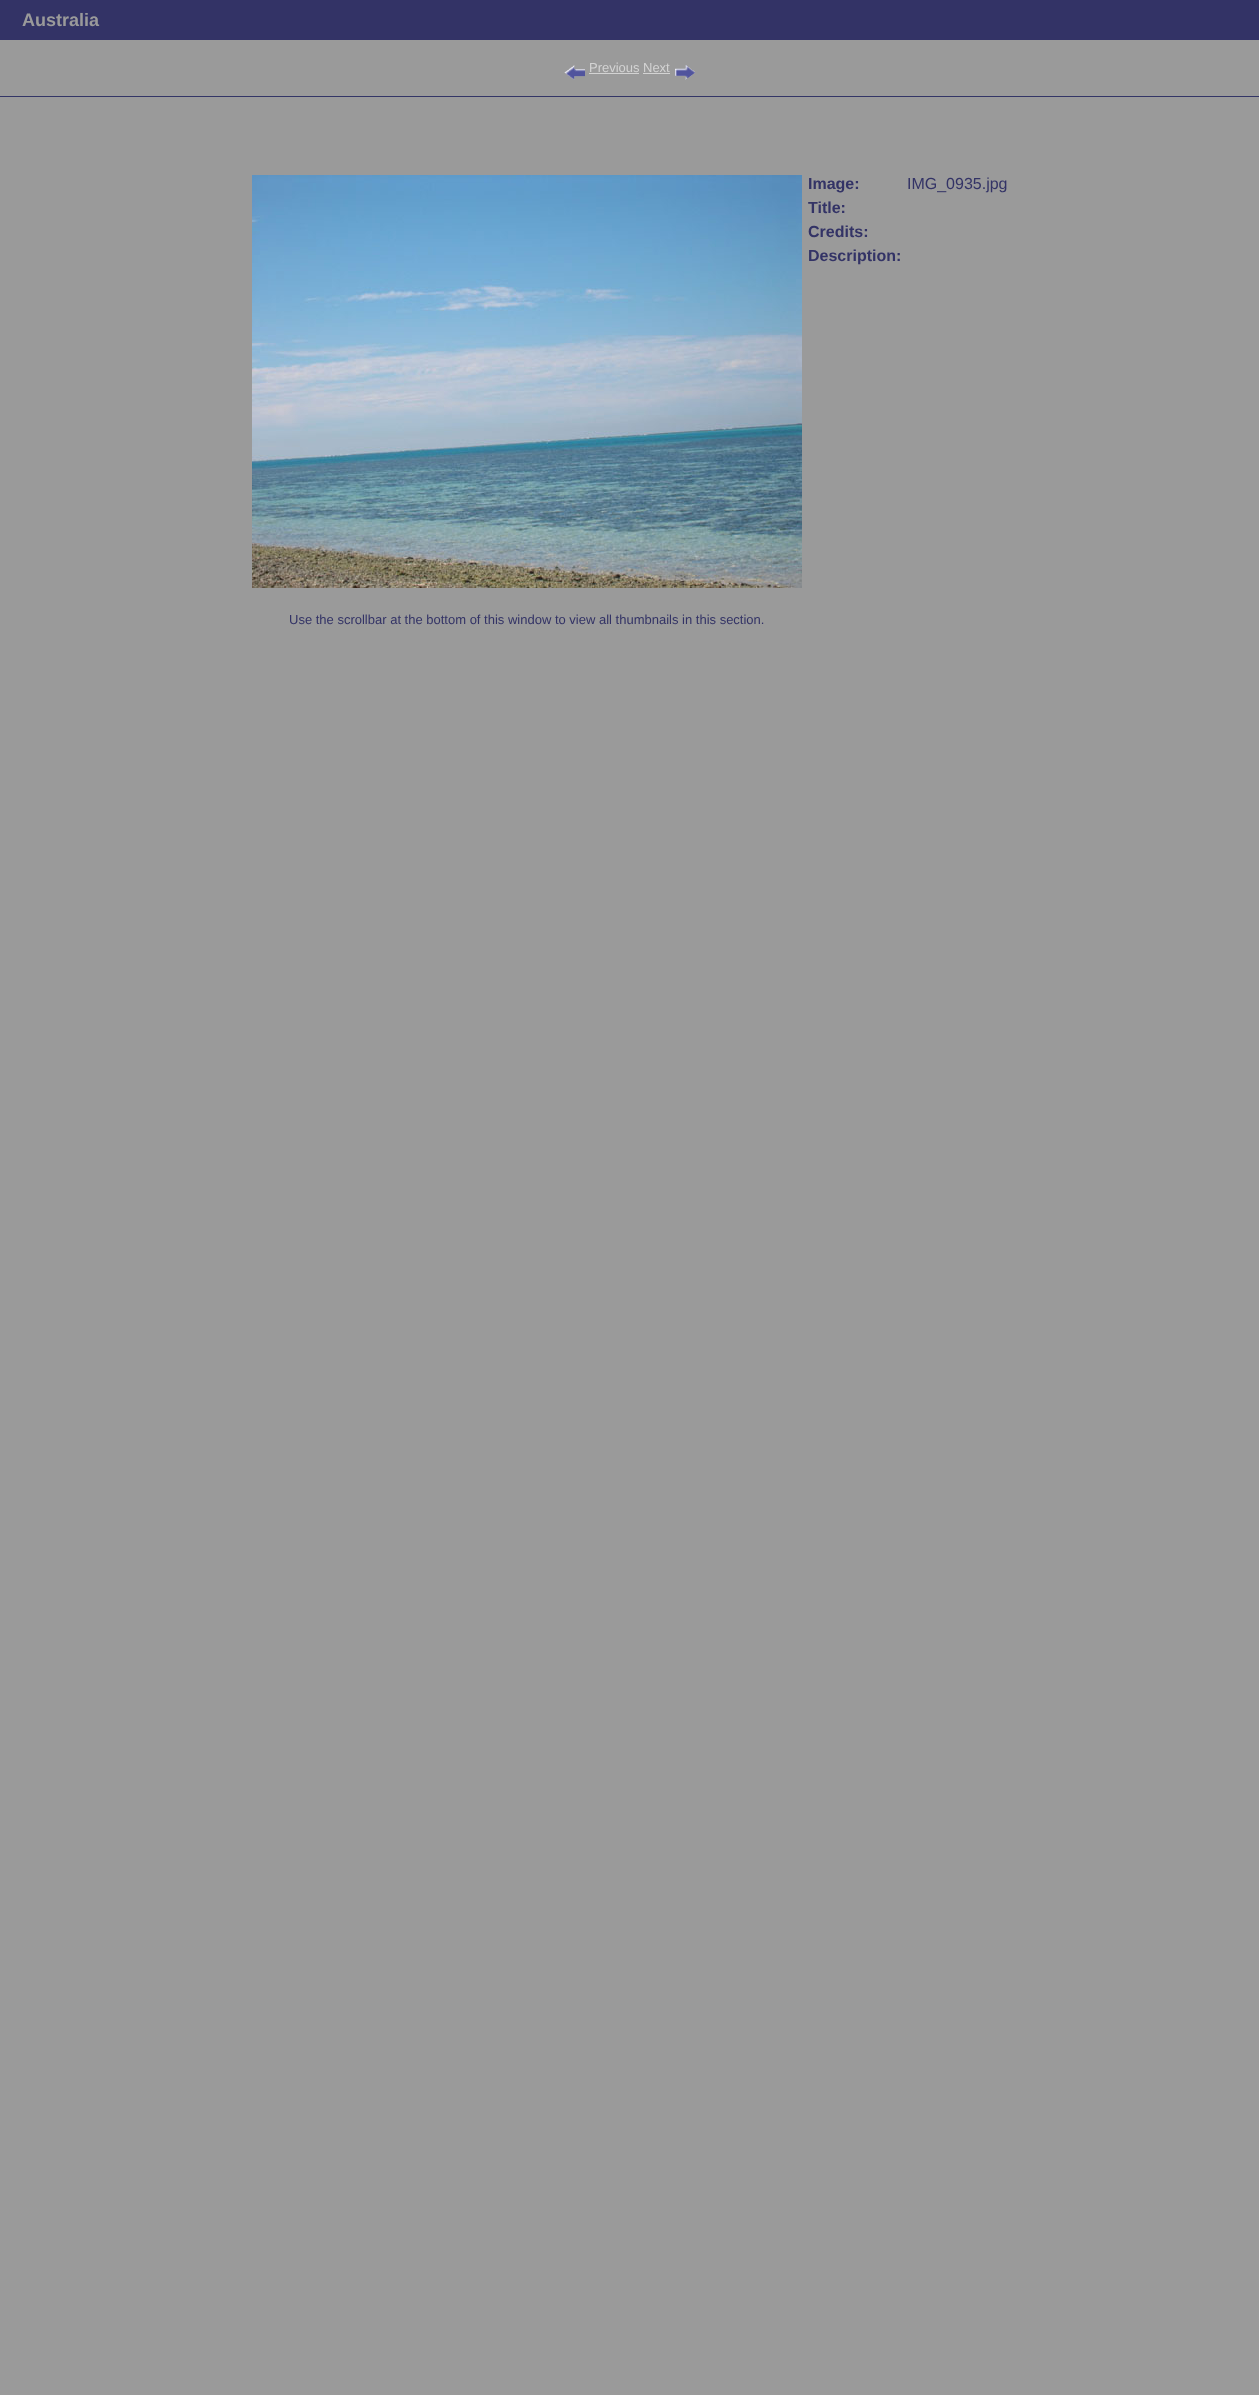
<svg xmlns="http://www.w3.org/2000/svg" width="1259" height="2395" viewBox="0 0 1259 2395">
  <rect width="100%" height="100%" fill="rgb(154,154,154)"/>
  <rect x="0" y="0" width="1259" height="40" fill="rgb(51,51,102)"/>
  <text x="22" y="26" font-family="Liberation Sans" font-size="18" font-weight="bold" fill="rgb(154,154,154)">Australia</text>
  <text x="589" y="72" font-family="Liberation Sans" font-size="13" fill="rgb(211,211,211)">Previous</text>
  <rect x="589" y="73" width="50" height="1" fill="rgb(211,211,211)"/>
  <text x="643" y="72" font-family="Liberation Sans" font-size="13" fill="rgb(211,211,211)">Next</text>
  <rect x="643" y="73" width="27" height="1" fill="rgb(211,211,211)"/>
  <image x="675" y="65" width="20" height="15" href="pic1.png"/>
  <rect x="0" y="96" width="1259" height="1" fill="rgb(51,53,102)"/>
  <image x="252" y="175" width="550" height="413" href="pic2.png"/>
  <text x="808" y="189" font-family="Liberation Sans" font-size="16" font-weight="bold" fill="rgb(51,51,102)">Image:</text>
  <text x="907" y="189" font-family="Liberation Sans" font-size="16" fill="rgb(51,51,102)">IMG_0935.jpg</text>
  <g font-family="Liberation Sans" font-size="16" font-weight="bold" fill="rgb(51,51,102)">
    <text>
      <tspan x="808" y="213">Title:</tspan>
      <tspan x="808" y="237">Credits:</tspan>
      <tspan x="808" y="261">Description:</tspan>
    </text>
  </g>
  <text x="289" y="624" font-family="Liberation Sans" font-size="13" fill="rgb(51,51,102)">Use the scrollbar at the bottom of this window to view all thumbnails in this section.</text>
  <image x="564" y="65" width="21" height="15" href="pic3.png"/>
</svg>
